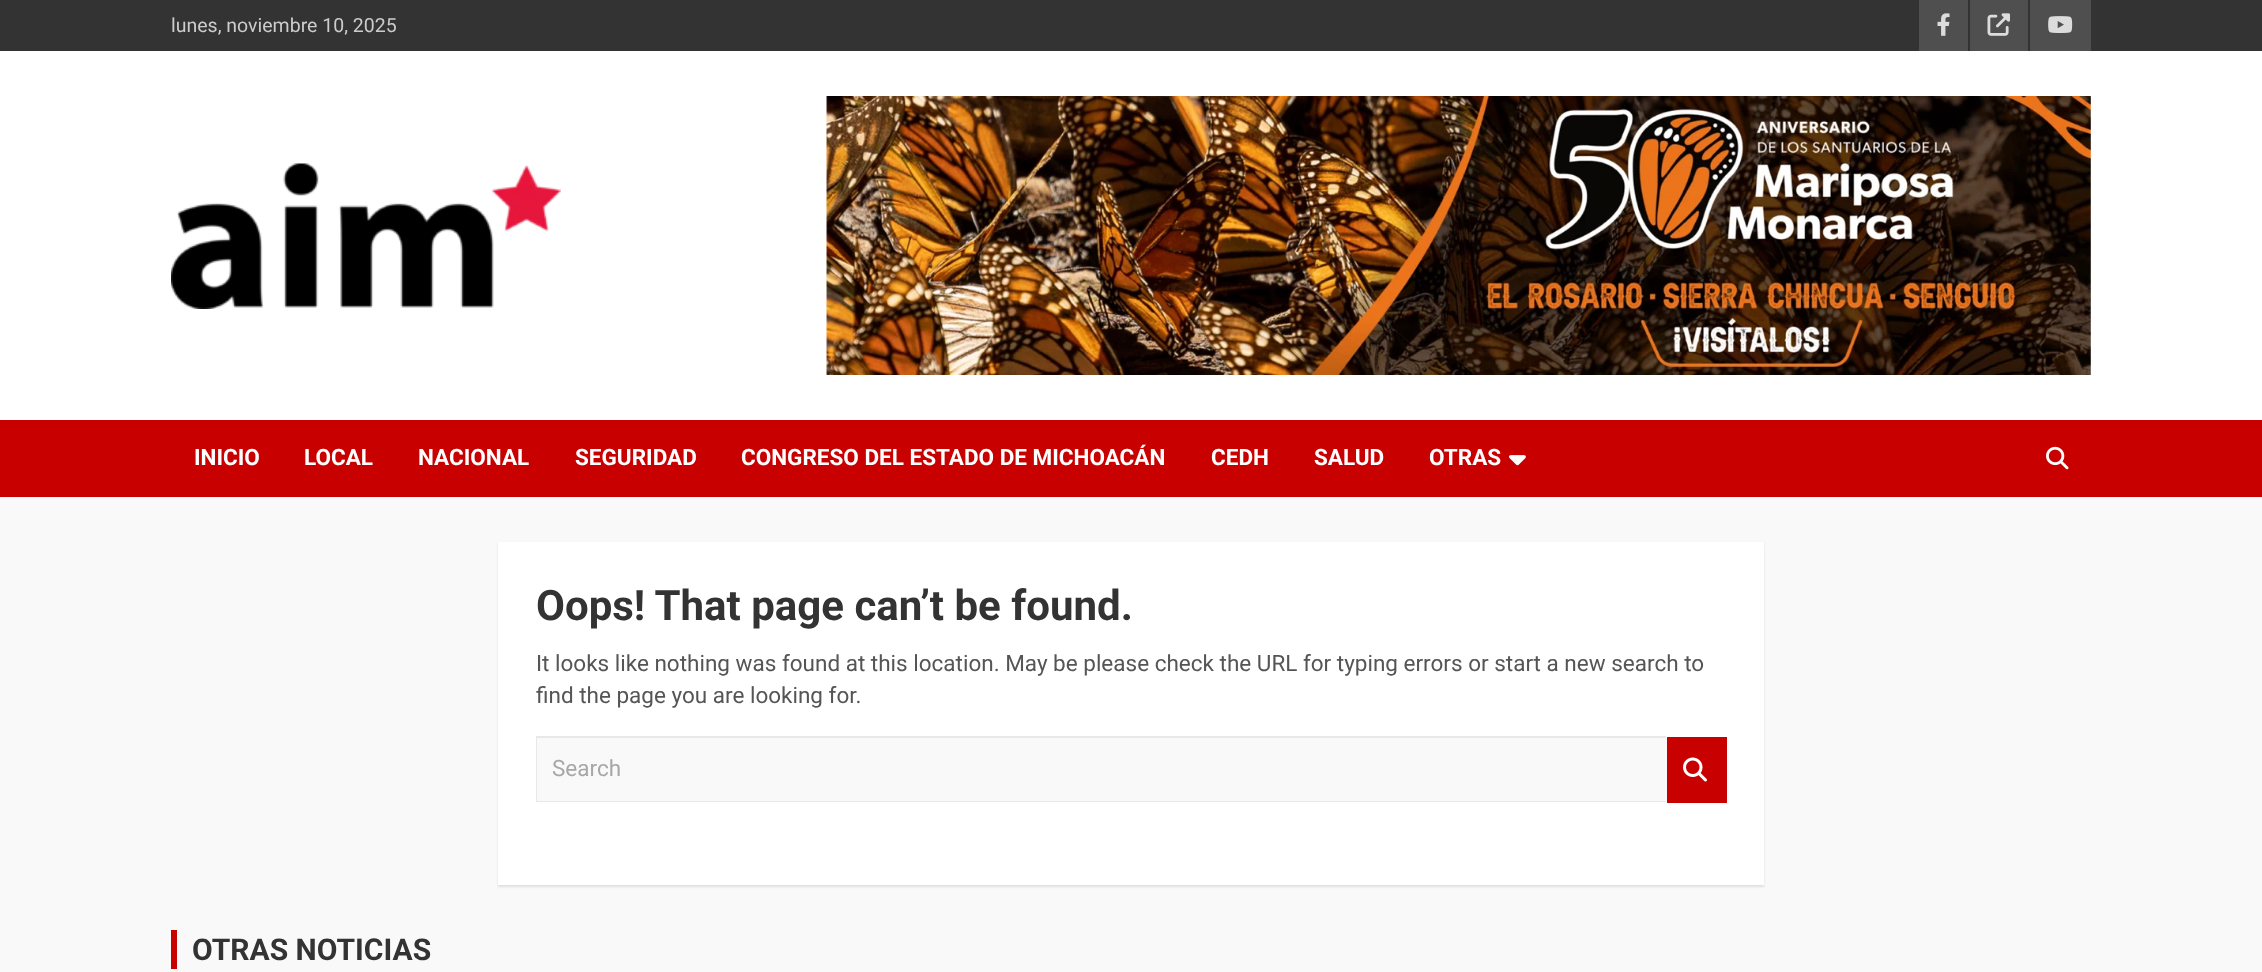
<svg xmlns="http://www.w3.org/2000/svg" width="2262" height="972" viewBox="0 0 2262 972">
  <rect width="100%" height="100%" fill="rgb(249,249,249)"/>
  <rect x="0" y="0" width="2262" height="51" fill="rgb(51,51,51)"/>
  <text x="171" y="32" font-family="Roboto" font-size="19.5" fill="rgb(204,204,204)">lunes, noviembre 10, 2025</text>
  <rect x="1919" y="0" width="49" height="51" fill="rgb(79,79,79)"/>
  <image x="1937" y="13" width="13" height="23" href="pic1.png"/>
  <rect x="1970" y="0" width="58" height="51" fill="rgb(79,79,79)"/>
  <image x="1987" y="13" width="23" height="23" href="pic2.png"/>
  <rect x="2030" y="0" width="61" height="51" fill="rgb(79,79,79)"/>
  <image x="2048" y="16" width="25" height="17" href="pic3.png"/>
  <rect x="0" y="51" width="2262" height="369" fill="rgb(255,255,255)"/>
  <image x="171" y="163" width="390" height="146" href="pic4.png"/>
  <image x="826" y="96" width="1265" height="279" href="pic5.png"/>
  <rect x="0" y="420" width="2262" height="77" fill="rgb(200,0,0)"/>
  <g font-family="Roboto" font-size="22.5" font-weight="bold" fill="rgb(255,255,255)">
    <text x="194" y="465">INICIO</text>
    <text x="304" y="465">LOCAL</text>
    <text x="418" y="465">NACIONAL</text>
    <text x="575" y="465">SEGURIDAD</text>
    <text x="741" y="465">CONGRESO DEL ESTADO DE MICHOACÁN</text>
    <text x="1211" y="465">CEDH</text>
    <text x="1314" y="465">SALUD</text>
    <text x="1429" y="465">OTRAS</text>
  </g>
  <image x="1509" y="455" width="17" height="11" href="pic6.png"/>
  <image x="2046" y="446" width="23" height="24" href="pic7.png"/>
  <rect x="498" y="543" width="1266" height="344" fill="rgba(0,0,0,0.1)" filter="blur(1px)"/>
  <rect x="498" y="542" width="1266" height="343" fill="rgb(255,255,255)"/>
  <text x="536" y="620" font-family="Roboto" font-size="42" font-weight="bold" fill="rgb(51,51,51)">Oops! That page can’t be found.</text>
  <g font-family="Roboto" font-size="22.5" fill="rgb(85,85,85)">
    <text>
      <tspan x="536" y="671">It looks like nothing was found at this location. May be please check the URL for typing errors or start a new search to</tspan>
      <tspan x="536" y="703">find the page you are looking for.</tspan>
    </text>
  </g>
  <rect x="537" y="738" width="1130" height="63" fill="rgb(249,249,249)"/>
  <path d="M536 736H1666V738H537Z" fill="rgb(232,232,232)"/>
  <path d="M1666 802H536L537 801H1666Z" fill="rgb(232,232,232)"/>
  <path d="M536 802V736L537 738V801Z" fill="rgba(0,0,0,0.09)"/>
  <text x="552" y="776" font-family="Roboto" font-size="22.5" fill="rgb(167,167,167)">Search</text>
  <rect x="1667" y="737" width="60" height="66" fill="rgb(200,0,0)"/>
  <image x="1683" y="757" width="24" height="25" href="pic8.png"/>
  <rect x="171" y="930" width="6" height="39" fill="rgb(200,0,0)"/>
  <text x="192" y="960" font-family="Roboto" font-size="30" font-weight="bold" fill="rgb(51,51,51)">OTRAS NOTICIAS</text>
</svg>
